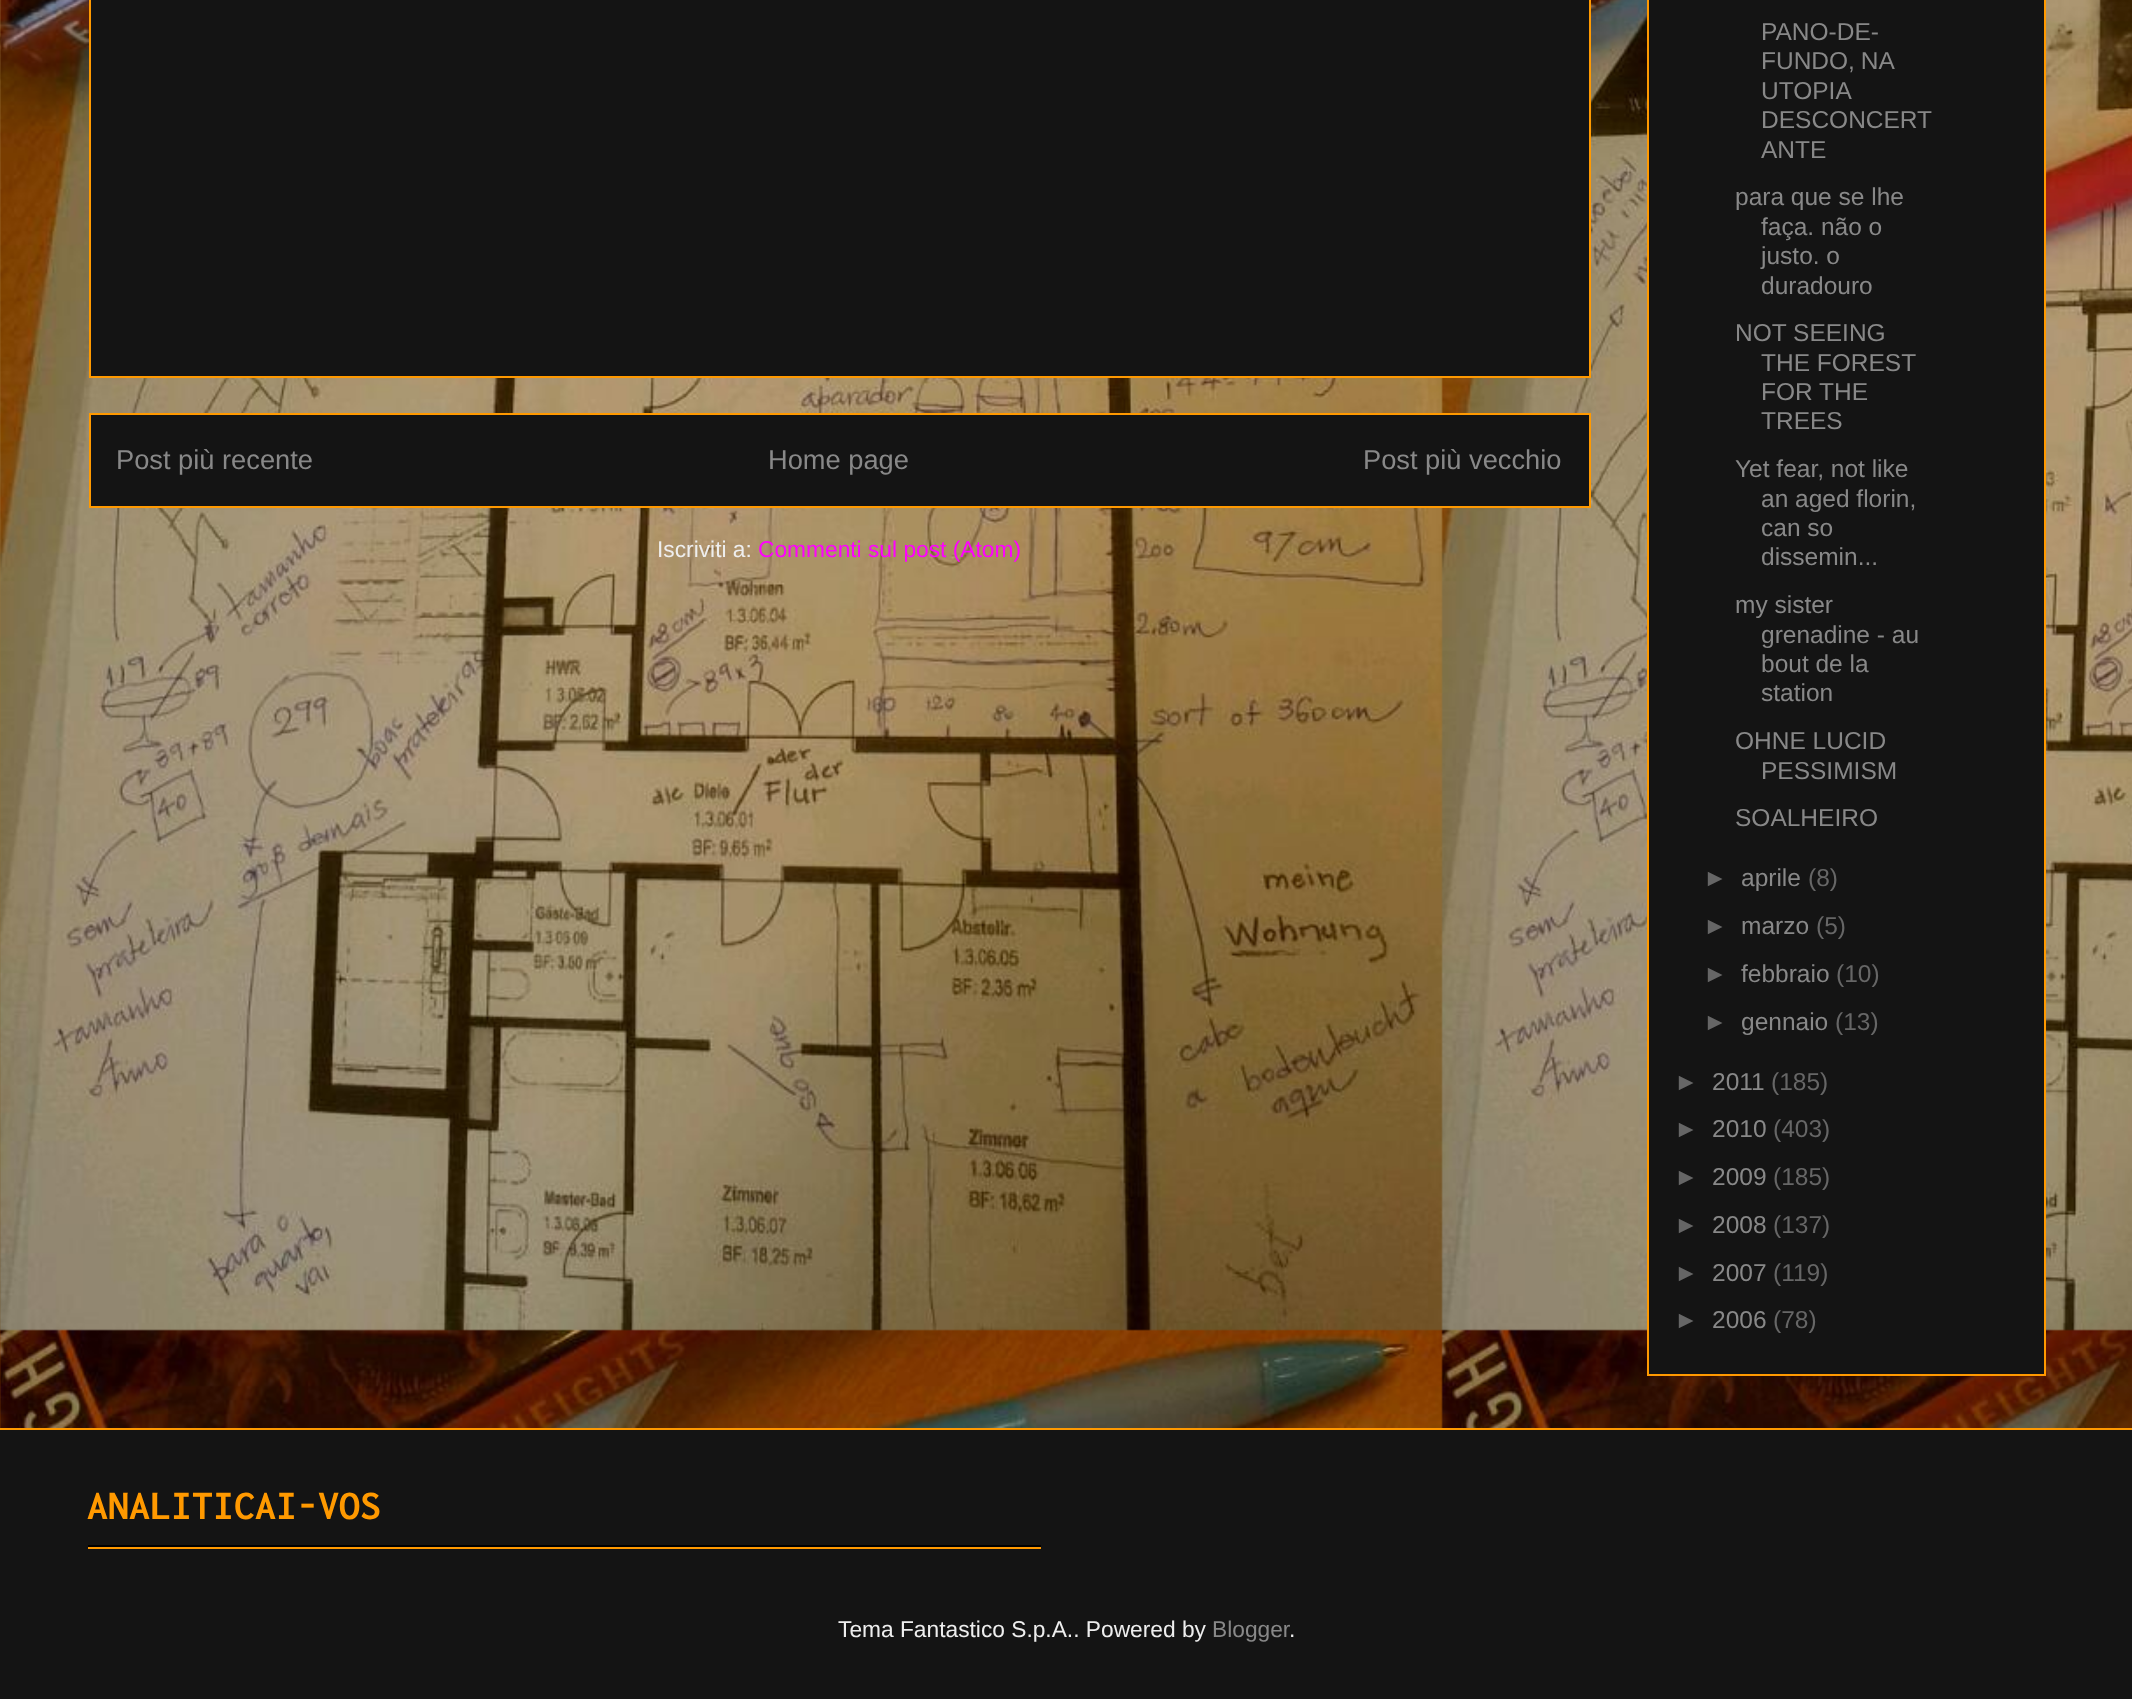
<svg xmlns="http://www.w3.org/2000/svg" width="2132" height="1699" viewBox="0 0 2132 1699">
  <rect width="100%" height="100%" fill="rgb(255,255,255)"/>
  <image x="0" y="0" width="2132" height="1428" href="pic1.png"/>
  <rect x="90" y="-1" width="1500" height="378" fill="rgb(20,20,20)" stroke="rgb(255,153,0)" stroke-width="2"/>
  <rect x="90" y="414" width="1500" height="93" fill="rgb(20,20,20)" stroke="rgb(255,153,0)" stroke-width="2"/>
  <g font-family="Liberation Sans" font-size="27.25" fill="rgb(136,136,136)">
    <text x="116" y="469">Post più recente</text>
    <text x="768" y="469">Home page</text>
    <text x="1363" y="469">Post più vecchio</text>
  </g>
  <text x="657" y="557" font-family="Liberation Sans" font-size="22.75" fill="rgb(238,238,238)">Iscriviti a:</text>
  <text x="758" y="557" font-family="Liberation Sans" font-size="22.75" fill="rgb(255,0,255)">Commenti sul post (Atom)</text>
  <rect x="1648" y="-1" width="397" height="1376" fill="rgb(20,20,20)" stroke="rgb(255,153,0)" stroke-width="2"/>
  <g font-family="Liberation Sans" font-size="24.5" fill="rgb(136,136,136)">
    <text>
      <tspan x="1761" y="40">PANO-DE-</tspan>
      <tspan x="1761" y="69" word-spacing="-1">FUNDO, NA</tspan>
      <tspan x="1761" y="99">UTOPIA</tspan>
      <tspan x="1761" y="128">DESCONCERT</tspan>
      <tspan x="1761" y="158">ANTE</tspan>
    </text>
    <text x="1735" y="205">para que se lhe</text>
    <text>
      <tspan x="1761" y="235">faça. não o</tspan>
      <tspan x="1761" y="264">justo. o</tspan>
      <tspan x="1761" y="294">duradouro</tspan>
    </text>
    <text x="1735" y="341">NOT SEEING</text>
    <text>
      <tspan x="1761" y="371">THE FOREST</tspan>
      <tspan x="1761" y="400">FOR THE</tspan>
      <tspan x="1761" y="429">TREES</tspan>
    </text>
    <text x="1735" y="477">Yet fear, not like</text>
    <text>
      <tspan x="1761" y="507">an aged florin,</tspan>
      <tspan x="1761" y="536">can so</tspan>
      <tspan x="1761" y="565">dissemin...</tspan>
    </text>
    <text x="1735" y="613">my sister</text>
    <text>
      <tspan x="1761" y="643">grenadine - au</tspan>
      <tspan x="1761" y="672">bout de la</tspan>
      <tspan x="1761" y="701">station</tspan>
    </text>
    <text x="1735" y="749">OHNE LUCID</text>
    <text x="1761" y="779">PESSIMISM</text>
    <text x="1735" y="826">SOALHEIRO</text>
  </g>
  <text x="1703" y="886" font-family="Liberation Sans" font-size="24.5" fill="rgb(102,102,102)">►</text>
  <text x="1741" y="886" font-family="Liberation Sans" font-size="24.5" fill="rgb(136,136,136)">aprile</text>
  <g font-family="Liberation Sans" font-size="24.5" fill="rgb(102,102,102)">
    <text x="1808" y="886">(8)</text>
    <text x="1703" y="934">►</text>
  </g>
  <text x="1741" y="934" font-family="Liberation Sans" font-size="24.5" fill="rgb(136,136,136)">marzo</text>
  <g font-family="Liberation Sans" font-size="24.5" fill="rgb(102,102,102)">
    <text x="1816" y="934">(5)</text>
    <text x="1703" y="982">►</text>
  </g>
  <text x="1741" y="982" font-family="Liberation Sans" font-size="24.5" fill="rgb(136,136,136)">febbraio</text>
  <g font-family="Liberation Sans" font-size="24.5" fill="rgb(102,102,102)">
    <text x="1836" y="982">(10)</text>
    <text x="1703" y="1030">►</text>
  </g>
  <text x="1741" y="1030" font-family="Liberation Sans" font-size="24.5" fill="rgb(136,136,136)">gennaio</text>
  <g font-family="Liberation Sans" font-size="24.5" fill="rgb(102,102,102)">
    <text x="1835" y="1030">(13)</text>
    <text x="1674" y="1090">►</text>
  </g>
  <text x="1712" y="1090" font-family="Liberation Sans" font-size="24.5" fill="rgb(136,136,136)">2011</text>
  <g font-family="Liberation Sans" font-size="24.5" fill="rgb(102,102,102)">
    <text x="1771" y="1090">(185)</text>
    <text x="1674" y="1137">►</text>
  </g>
  <text x="1712" y="1137" font-family="Liberation Sans" font-size="24.5" fill="rgb(136,136,136)">2010</text>
  <g font-family="Liberation Sans" font-size="24.5" fill="rgb(102,102,102)">
    <text x="1773" y="1137">(403)</text>
    <text x="1674" y="1185">►</text>
  </g>
  <text x="1712" y="1185" font-family="Liberation Sans" font-size="24.5" fill="rgb(136,136,136)">2009</text>
  <g font-family="Liberation Sans" font-size="24.5" fill="rgb(102,102,102)">
    <text x="1773" y="1185">(185)</text>
    <text x="1674" y="1233">►</text>
  </g>
  <text x="1712" y="1233" font-family="Liberation Sans" font-size="24.5" fill="rgb(136,136,136)">2008</text>
  <g font-family="Liberation Sans" font-size="24.5" fill="rgb(102,102,102)">
    <text x="1773" y="1233">(137)</text>
    <text x="1674" y="1281">►</text>
  </g>
  <text x="1712" y="1281" font-family="Liberation Sans" font-size="24.5" fill="rgb(136,136,136)">2007</text>
  <g font-family="Liberation Sans" font-size="24.5" fill="rgb(102,102,102)">
    <text x="1773" y="1281">(119)</text>
    <text x="1674" y="1328">►</text>
  </g>
  <text x="1712" y="1328" font-family="Liberation Sans" font-size="24.5" fill="rgb(136,136,136)">2006</text>
  <text x="1773" y="1328" font-family="Liberation Sans" font-size="24.5" fill="rgb(102,102,102)">(78)</text>
  <rect x="0" y="1430" width="2132" height="269" fill="rgb(20,20,20)"/>
  <rect x="0" y="1428" width="2132" height="2" fill="rgb(255,153,0)"/>
  <rect x="88" y="1545" width="953" height="2" fill="rgb(0,0,0)"/>
  <text x="87" y="1519" font-family="Inconsolata" font-size="42" font-weight="bold" fill="rgb(255,153,0)">ANALITICAI-VOS</text>
  <rect x="88" y="1547" width="953" height="2" fill="rgb(255,153,0)"/>
  <text x="838" y="1637" font-family="Liberation Sans" font-size="22.75" fill="rgb(238,238,238)">Tema Fantastico S.p.A.. Powered by</text>
  <text x="1212" y="1637" font-family="Liberation Sans" font-size="22.75" fill="rgb(136,136,136)">Blogger</text>
  <text x="1289" y="1637" font-family="Liberation Sans" font-size="22.75" fill="rgb(238,238,238)">.</text>
</svg>
